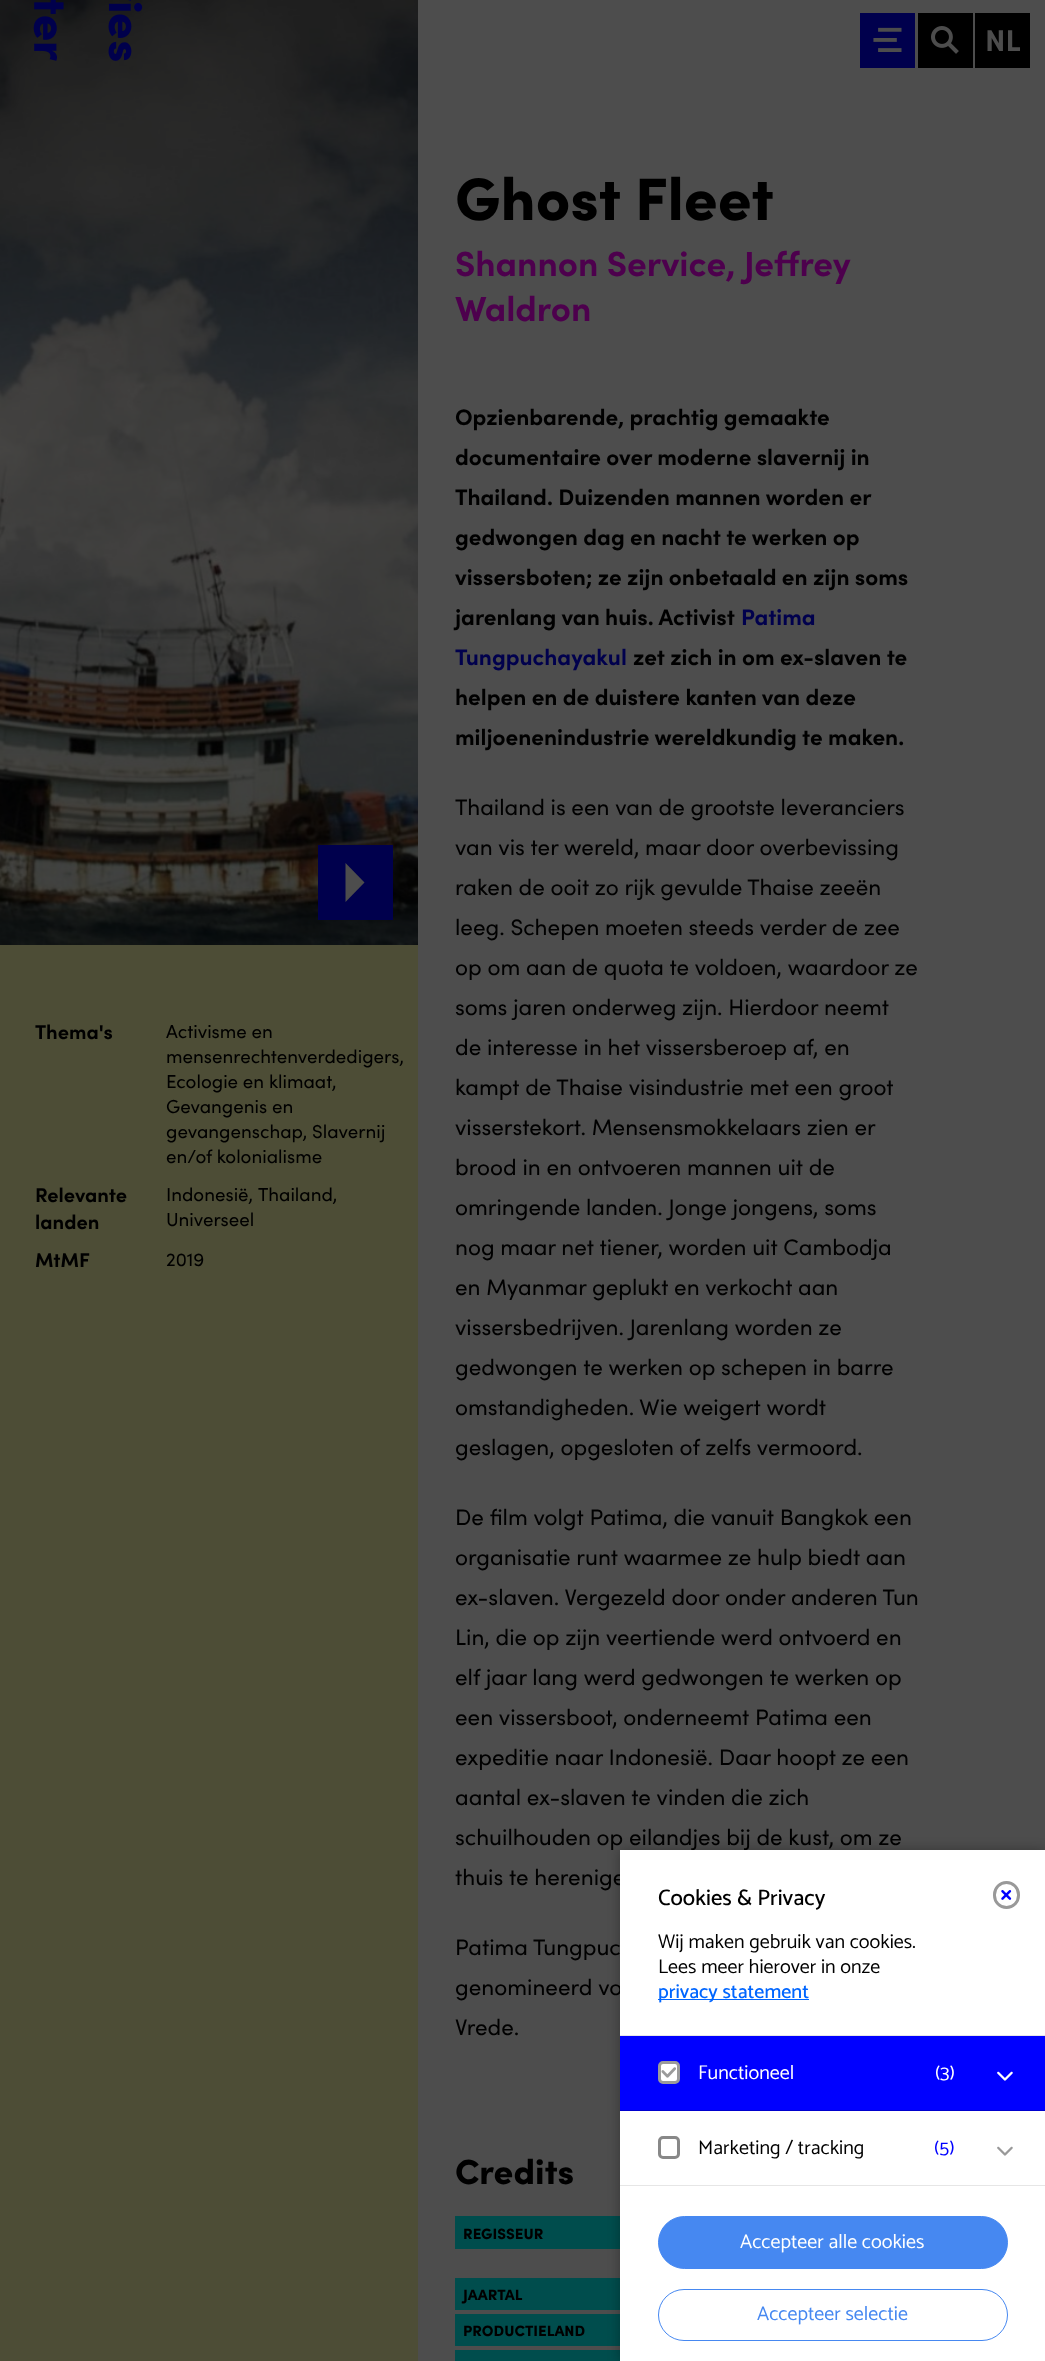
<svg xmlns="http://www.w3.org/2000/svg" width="1045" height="2361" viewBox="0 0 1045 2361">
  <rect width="100%" height="100%" fill="rgb(77,77,77)"/>
  <image x="0" y="0" width="418" height="945" href="pic4.png"/>
  <image x="33" y="0" width="110" height="61" href="pic1.png"/>
  <rect x="860" y="13" width="55" height="55" fill="rgb(0,0,77)"/>
  <image x="873" y="27" width="29" height="25" href="pic2.png"/>
  <rect x="920.5" y="15.5" width="50" height="50" fill="none" stroke="rgb(0,0,0)" stroke-width="5"/>
  <rect x="923" y="18" width="45" height="45" fill="rgb(0,0,0)"/>
  <image x="931" y="26" width="28" height="28" href="pic3.png"/>
  <rect x="977.5" y="15.5" width="50" height="50" fill="none" stroke="rgb(0,0,0)" stroke-width="5"/>
  <rect x="980" y="18" width="45" height="45" fill="rgb(0,0,0)"/>
  <text x="985" y="51" font-family="Sofia" font-size="30" font-weight="bold" fill="rgb(77,77,77)">NL</text>
  <rect x="318" y="845" width="75" height="75" fill="rgb(0,0,77)"/>
  <path d="M345.5 863L364.5 882.5L345.5 902Z" fill="rgb(77,77,77)"/>
  <rect x="0" y="945" width="418" height="1416" fill="rgb(77,77,54)"/>
  <text x="35" y="1039" font-family="Sofia" font-size="20" font-weight="bold" fill="rgb(0,0,0)">Thema's</text>
  <g font-family="Sofia" font-size="18.75" fill="rgb(0,0,0)">
    <text>
      <tspan x="166" y="1038">Activisme en</tspan>
      <tspan x="166" y="1063">mensenrechtenverdedigers,</tspan>
      <tspan x="166" y="1088">Ecologie en klimaat</tspan>
    </text>
    <text x="332" y="1088">,</text>
    <text>
      <tspan x="166" y="1113">Gevangenis en</tspan>
      <tspan x="166" y="1138">gevangenschap, Slavernij</tspan>
      <tspan x="166" y="1163">en/of kolonialisme</tspan>
    </text>
  </g>
  <g font-family="Sofia" font-size="20" font-weight="bold" fill="rgb(0,0,0)">
    <text>
      <tspan x="35" y="1202">Relevante</tspan>
      <tspan x="35" y="1229">landen</tspan>
    </text>
  </g>
  <g font-family="Sofia" font-size="18.75" fill="rgb(0,0,0)">
    <text x="166" y="1201">Indonesië,</text>
    <text x="258" y="1201">Thailand,</text>
    <text x="166" y="1226">Universeel</text>
  </g>
  <text x="35" y="1267" font-family="Sofia" font-size="20" font-weight="bold" fill="rgb(0,0,0)">MtMF</text>
  <text x="166" y="1266" font-family="Sofia" font-size="18.75" fill="rgb(0,0,0)">2019</text>
  <text x="455" y="220" font-family="Sofia" font-size="60" font-weight="900" fill="rgb(0,0,0)">Ghost Fleet</text>
  <g font-family="Sofia" font-size="35" font-weight="bold" fill="rgb(77,0,77)">
    <text>
      <tspan x="455" y="276">Shannon Service, Jeffrey</tspan>
      <tspan x="455" y="321">Waldron</tspan>
    </text>
  </g>
  <g font-family="Sofia" font-size="22.5" font-weight="bold" fill="rgb(0,0,0)">
    <text>
      <tspan x="455" y="425">Opzienbarende, prachtig gemaakte</tspan>
      <tspan x="455" y="465">documentaire over moderne slavernij in</tspan>
      <tspan x="455" y="505">Thailand. Duizenden mannen worden er</tspan>
      <tspan x="455" y="545">gedwongen dag en nacht te werken op</tspan>
      <tspan x="455" y="585">vissersboten; ze zijn onbetaald en zijn soms</tspan>
      <tspan x="455" y="625">jarenlang van huis. Activist</tspan>
    </text>
  </g>
  <g font-family="Sofia" font-size="22.5" font-weight="bold" fill="rgb(0,0,77)">
    <text x="741" y="625">Patima</text>
    <text x="455" y="665">Tungpuchayakul</text>
  </g>
  <g font-family="Sofia" font-size="22.5" font-weight="bold" fill="rgb(0,0,0)">
    <text x="633" y="665">zet zich in om ex-slaven te</text>
    <text>
      <tspan x="455" y="705">helpen en de duistere kanten van deze</tspan>
      <tspan x="455" y="745">miljoenenindustrie wereldkundig te maken.</tspan>
    </text>
  </g>
  <g font-family="Sofia" font-size="22.5" fill="rgb(0,0,0)">
    <text>
      <tspan x="455" y="815">Thailand is een van de grootste leveranciers</tspan>
      <tspan x="455" y="855">van vis ter wereld, maar door overbevissing</tspan>
      <tspan x="455" y="895">raken de ooit zo rijk gevulde Thaise zeeën</tspan>
      <tspan x="455" y="935">leeg. Schepen moeten steeds verder de zee</tspan>
      <tspan x="455" y="975">op om aan de quota te voldoen, waardoor ze</tspan>
      <tspan x="455" y="1015">soms jaren onderweg zijn. Hierdoor neemt</tspan>
      <tspan x="455" y="1055">de interesse in het vissersberoep af, en</tspan>
      <tspan x="455" y="1095">kampt de Thaise visindustrie met een groot</tspan>
      <tspan x="455" y="1135">visserstekort. Mensensmokkelaars zien er</tspan>
      <tspan x="455" y="1175">brood in en ontvoeren mannen uit de</tspan>
      <tspan x="455" y="1215">omringende landen. Jonge jongens, soms</tspan>
      <tspan x="455" y="1255">nog maar net tiener, worden uit Cambodja</tspan>
      <tspan x="455" y="1295">en Myanmar geplukt en verkocht aan</tspan>
      <tspan x="455" y="1335">vissersbedrijven. Jarenlang worden ze</tspan>
      <tspan x="455" y="1375">gedwongen te werken op schepen in barre</tspan>
      <tspan x="455" y="1415">omstandigheden. Wie weigert wordt</tspan>
      <tspan x="455" y="1455">geslagen, opgesloten of zelfs vermoord.</tspan>
    </text>
    <text>
      <tspan x="455" y="1525">De film volgt Patima, die vanuit Bangkok een</tspan>
      <tspan x="455" y="1565">organisatie runt waarmee ze hulp biedt aan</tspan>
      <tspan x="455" y="1605">ex-slaven. Vergezeld door onder anderen Tun</tspan>
      <tspan x="455" y="1645">Lin, die op zijn veertiende werd ontvoerd en</tspan>
      <tspan x="455" y="1685">elf jaar lang werd gedwongen te werken op</tspan>
      <tspan x="455" y="1725">een vissersboot, onderneemt Patima een</tspan>
      <tspan x="455" y="1765">expeditie naar Indonesië. Daar hoopt ze een</tspan>
      <tspan x="455" y="1805">aantal ex-slaven te vinden die zich</tspan>
      <tspan x="455" y="1845">schuilhouden op eilandjes bij de kust, om ze</tspan>
      <tspan x="455" y="1885">thuis te herenige</tspan>
    </text>
    <text>
      <tspan x="455" y="1955">Patima Tungpuc</tspan>
      <tspan x="455" y="1995">genomineerd vo</tspan>
      <tspan x="455" y="2035">Vrede.</tspan>
    </text>
  </g>
  <text x="455" y="2184" font-family="Sofia" font-size="35" font-weight="900" fill="rgb(0,0,0)">Credits</text>
  <rect x="455" y="2216" width="165" height="33" fill="rgb(0,77,77)"/>
  <text x="463" y="2239" font-family="Sofia" font-size="15" font-weight="900" fill="rgb(0,0,0)">REGISSEUR</text>
  <rect x="455" y="2278" width="165" height="32" fill="rgb(0,77,77)"/>
  <text x="463" y="2300" font-family="Sofia" font-size="15" font-weight="900" fill="rgb(0,0,0)">JAARTAL</text>
  <rect x="455" y="2314" width="165" height="32" fill="rgb(0,77,77)"/>
  <text x="463" y="2336" font-family="Sofia" font-size="15" font-weight="900" fill="rgb(0,0,0)">PRODUCTIELAND</text>
  <rect x="455" y="2350" width="165" height="11" fill="rgb(0,77,77)"/>
  <rect x="620" y="1850" width="425" height="511" fill="rgba(0,0,0,0.3)" filter="blur(6px)"/>
  <rect x="620" y="1850" width="425" height="511" fill="rgb(255,255,255)"/>
  <rect x="620" y="2035" width="425" height="1" fill="rgb(230,230,230)"/>
  <text x="658" y="1905" font-family="Catamaran" font-size="22.5" font-weight="500" fill="rgb(0,0,0)">Cookies &amp; Privacy</text>
  <rect x="994.5" y="1882.5" width="24" height="25" rx="12" fill="none" stroke="rgb(153,153,153)" stroke-width="3"/>
  <image x="1001" y="1890" width="11" height="10" href="pic5.png"/>
  <g font-family="Catamaran" font-size="20" fill="rgb(0,0,0)">
    <text>
      <tspan x="658" y="1948">Wij maken gebruik van cookies.</tspan>
      <tspan x="658" y="1973">Lees meer hierover in onze</tspan>
    </text>
  </g>
  <rect x="658" y="1999" width="151" height="1" fill="rgb(0,102,255)"/>
  <text x="658" y="1998" font-family="Catamaran" font-size="20" font-weight="500" fill="rgb(0,102,255)">privacy statement</text>
  <rect x="620" y="2036" width="425" height="74" fill="rgb(0,0,255)"/>
  <rect x="620" y="2110" width="425" height="1" fill="rgb(0,0,204)"/>
  <rect x="659.5" y="2062.5" width="19" height="20" rx="3.5" fill="rgb(255,255,255)" stroke="rgb(155,155,155)" stroke-width="3"/>
  <image x="661" y="2067" width="15" height="11" href="pic6.png"/>
  <g font-family="Catamaran" font-size="20" fill="rgb(255,255,255)">
    <text x="698" y="2079">Functioneel</text>
    <text x="935" y="2079">(3)</text>
  </g>
  <image x="997" y="2071" width="16" height="10" href="pic7.png"/>
  <rect x="620" y="2185" width="425" height="1" fill="rgb(230,230,230)"/>
  <rect x="659.5" y="2137.5" width="19" height="20" rx="3.5" fill="none" stroke="rgb(136,136,136)" stroke-width="3"/>
  <text x="698" y="2154" font-family="Catamaran" font-size="20" fill="rgb(0,0,0)">Marketing / tracking</text>
  <text x="934" y="2154" font-family="Catamaran" font-size="20" fill="rgb(0,0,255)">(5)</text>
  <image x="997" y="2146" width="16" height="10" href="pic8.png"/>
  <rect x="658.5" y="2216.5" width="349" height="52" rx="26" fill="rgb(70,136,241)" stroke="rgb(70,136,241)"/>
  <text x="740" y="2248" font-family="Catamaran" font-size="20" fill="rgb(255,255,255)">Accepteer alle cookies</text>
  <rect x="658.5" y="2289.5" width="349" height="51" rx="25.5" fill="none" stroke="rgb(70,136,241)"/>
  <text x="757" y="2320" font-family="Catamaran" font-size="20" fill="rgb(70,136,241)">Accepteer selectie</text>
</svg>
